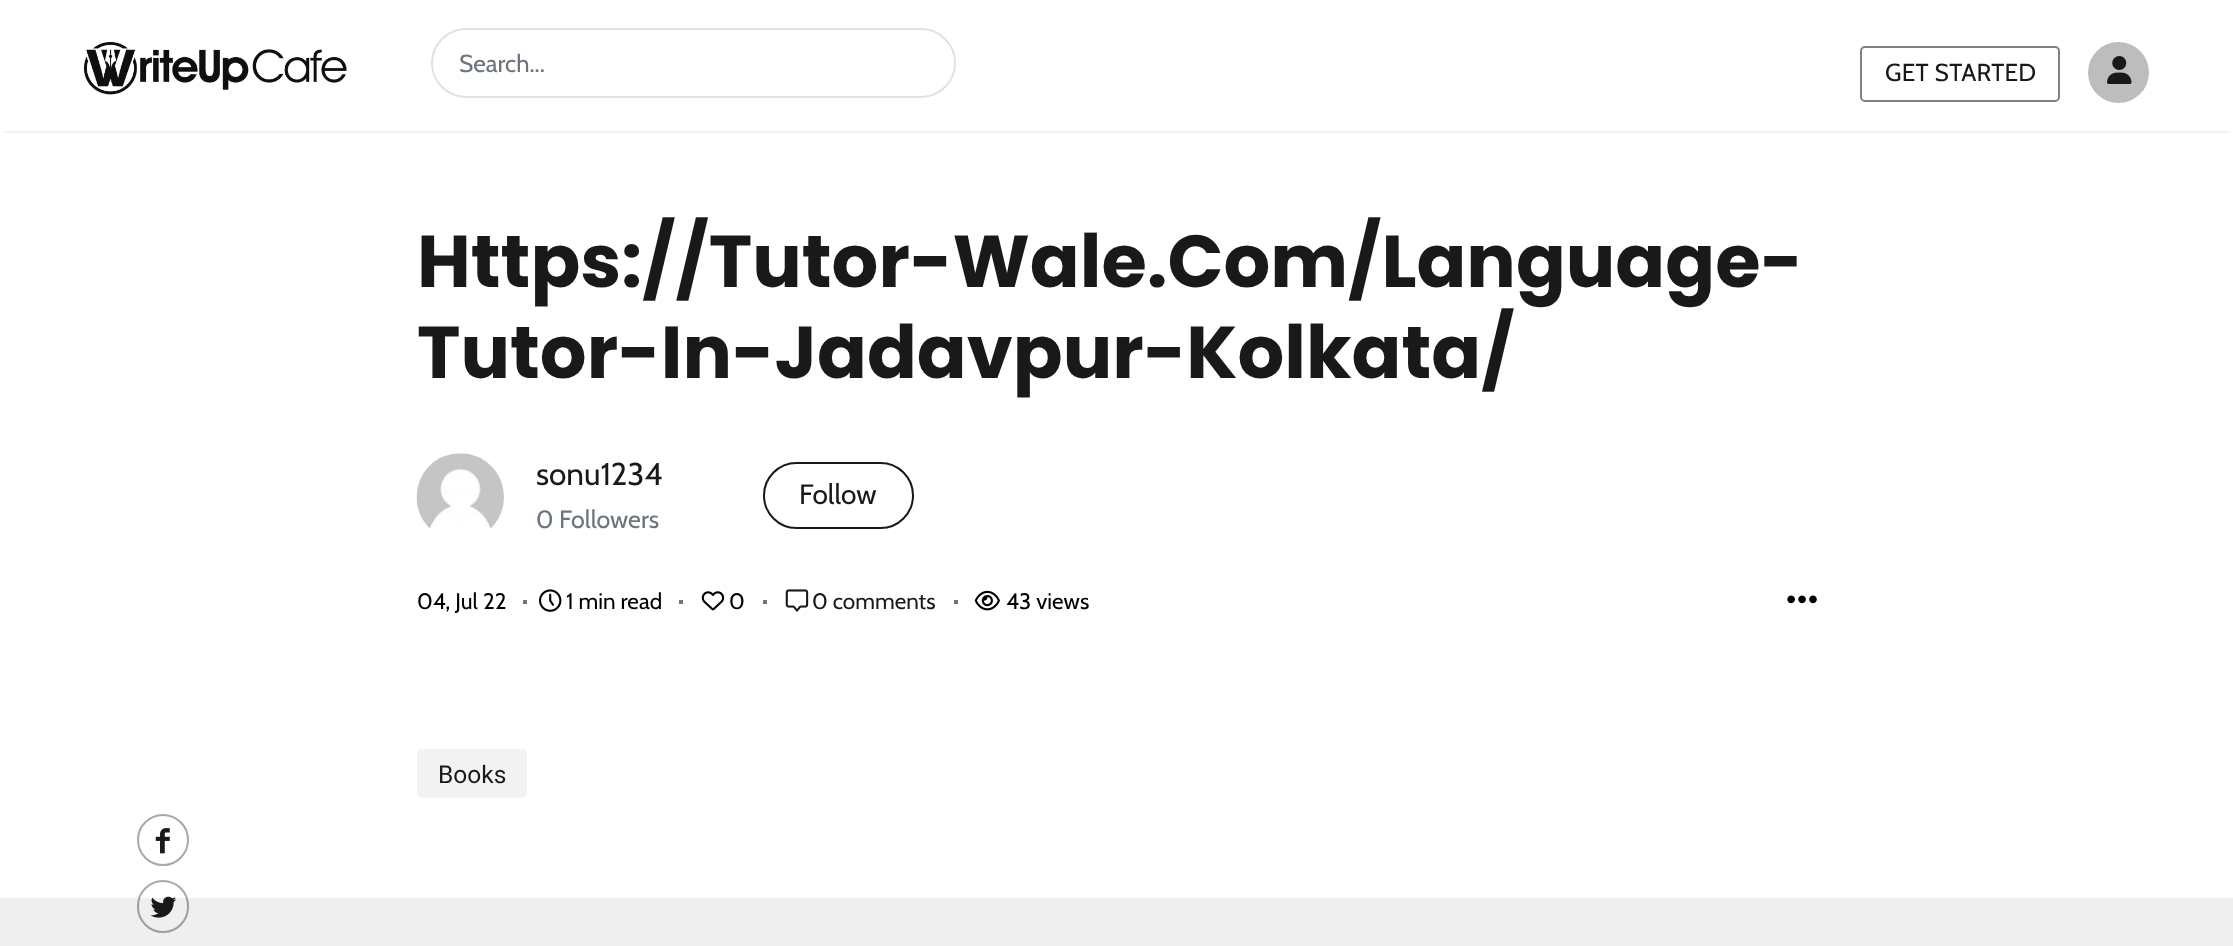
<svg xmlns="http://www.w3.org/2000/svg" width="2233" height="946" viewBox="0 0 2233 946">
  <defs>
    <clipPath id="clip1"><rect x="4" y="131" width="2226" height="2"/></clipPath>
  </defs>
  <rect width="100%" height="100%" fill="rgb(255,255,255)"/>
  <g clip-path="url(#clip1)">
    <rect x="4" y="7" width="2226" height="124" fill="rgba(0,0,0,0.15)" filter="blur(2px)"/>
  </g>
  <image x="84" y="42" width="263" height="53" href="pic1.png"/>
  <rect x="432" y="29" width="523" height="68" rx="34" fill="none" stroke="rgb(222,226,230)" stroke-width="2"/>
  <text x="459" y="72" font-family="Cabin" font-size="24.5" fill="rgb(108,117,125)">Search...</text>
  <rect x="1861" y="47" width="198" height="54" rx="4" fill="none" stroke="rgb(128,128,128)" stroke-width="2"/>
  <text x="1885" y="81" font-family="Cabin" font-size="24.5" letter-spacing="0.25" fill="rgb(25,25,25)">GET STARTED</text>
  <circle cx="2118.5" cy="72.5" r="30.5" fill="rgb(189,189,189)"/>
  <image x="2107" y="56" width="25" height="28" href="pic2.png"/>
  <g font-family="Poppins" font-size="73.5" font-weight="bold" fill="rgb(25,25,25)">
    <text>
      <tspan x="417" y="287">Https://Tutor-Wale.Com/Language-</tspan>
      <tspan x="417" y="378">Tutor-In-Jadavpur-Kolkata/</tspan>
    </text>
  </g>
  <image x="416" y="453" width="88" height="76" href="pic3.png"/>
  <text x="536" y="485" font-family="Cabin" font-size="31.5" fill="rgb(25,25,25)">sonu1234</text>
  <text x="536" y="528" font-family="Cabin" font-size="25" fill="rgb(108,117,125)">0 Followers</text>
  <rect x="764" y="463" width="149" height="65" rx="32.5" fill="none" stroke="rgb(25,25,25)" stroke-width="2"/>
  <text x="799" y="504" font-family="Cabin" font-size="28" fill="rgb(25,25,25)">Follow</text>
  <text x="417" y="609" font-family="Cabin" font-size="22.5" fill="rgb(0,0,0)">04, Jul 22</text>
  <rect x="523" y="600" width="4" height="4" fill="rgb(117,117,117)"/>
  <image x="539" y="589" width="23" height="23" href="pic4.png"/>
  <text x="566" y="609" font-family="Cabin" font-size="22.5" fill="rgb(0,0,0)">1 min read</text>
  <rect x="679" y="600" width="4" height="4" fill="rgb(117,117,117)"/>
  <image x="701" y="591" width="24" height="20" href="pic5.png"/>
  <text x="729" y="609" font-family="Cabin" font-size="22.5" fill="rgb(0,0,0)">0</text>
  <rect x="763" y="600" width="4" height="4" fill="rgb(117,117,117)"/>
  <image x="785" y="589" width="24" height="23" href="pic6.png"/>
  <text x="812" y="609" font-family="Cabin" font-size="22.5" fill="rgb(25,25,25)">0 comments</text>
  <rect x="954" y="600" width="4" height="4" fill="rgb(117,117,117)"/>
  <image x="974" y="590" width="26" height="21" href="pic7.png"/>
  <text x="1006" y="609" font-family="Cabin" font-size="22.5" fill="rgb(0,0,0)">43 views</text>
  <image x="1787" y="595" width="30" height="9" href="pic8.png"/>
  <rect x="417" y="749" width="110" height="49" rx="5" fill="rgb(242,242,242)"/>
  <text x="438" y="783" font-family="Roboto" font-size="24.5" fill="rgb(25,25,25)">Books</text>
  <circle cx="163" cy="840" r="25" fill="none" stroke="rgb(168,168,168)" stroke-width="2"/>
  <image x="155" y="828" width="15" height="26" href="pic9.png"/>
  <rect x="0" y="898" width="2233" height="48" fill="rgb(239,239,239)"/>
  <rect x="138" y="881" width="50" height="51" rx="25" fill="none" stroke="rgba(0,0,0,0.34)" stroke-width="2"/>
  <image x="150" y="896" width="27" height="22" href="pic10.png"/>
</svg>
